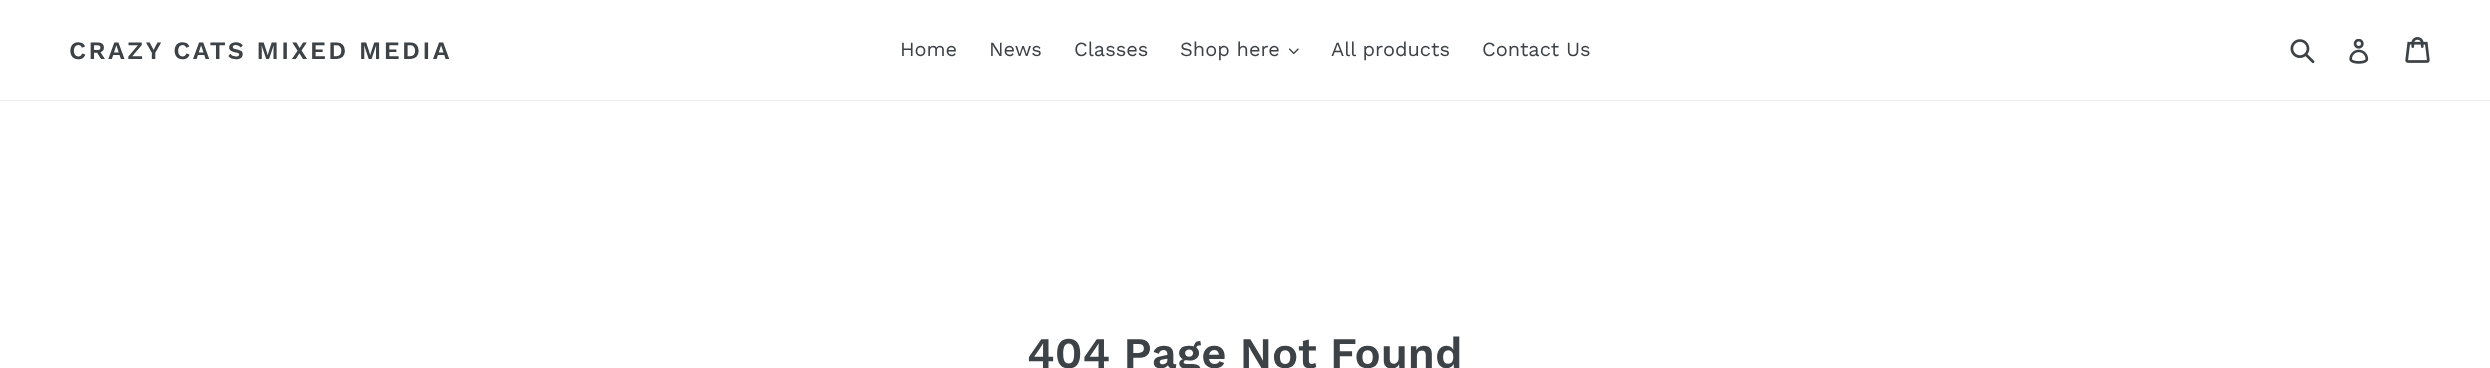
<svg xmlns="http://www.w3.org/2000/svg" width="2490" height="368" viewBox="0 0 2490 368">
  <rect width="100%" height="100%" fill="rgb(255,255,255)"/>
  <rect x="0" y="100" width="2490" height="1" fill="rgb(232,233,235)"/>
  <text x="69" y="59" font-family="Work Sans" font-size="25" font-weight="600" letter-spacing="2.5" fill="rgb(61,66,70)">CRAZY CATS MIXED MEDIA</text>
  <g font-family="Work Sans" font-size="20" fill="rgb(61,66,70)">
    <text x="900" y="56">Home</text>
    <text x="989" y="56">News</text>
    <text x="1074" y="56">Classes</text>
    <text x="1180" y="56">Shop here</text>
  </g>
  <image x="1289" y="48" width="10" height="7" href="pic1.png"/>
  <g font-family="Work Sans" font-size="20" fill="rgb(61,66,70)">
    <text x="1331" y="56">All products</text>
    <text x="1482" y="56">Contact Us</text>
  </g>
  <image x="2290" y="39" width="25" height="25" href="pic2.png"/>
  <image x="2349" y="39" width="20" height="25" href="pic3.png"/>
  <image x="2405" y="37" width="25" height="26" href="pic4.png"/>
  <text x="1027" y="368" font-family="Work Sans" font-size="43.75" font-weight="600" fill="rgb(61,66,70)">404 Page Not Found</text>
</svg>
